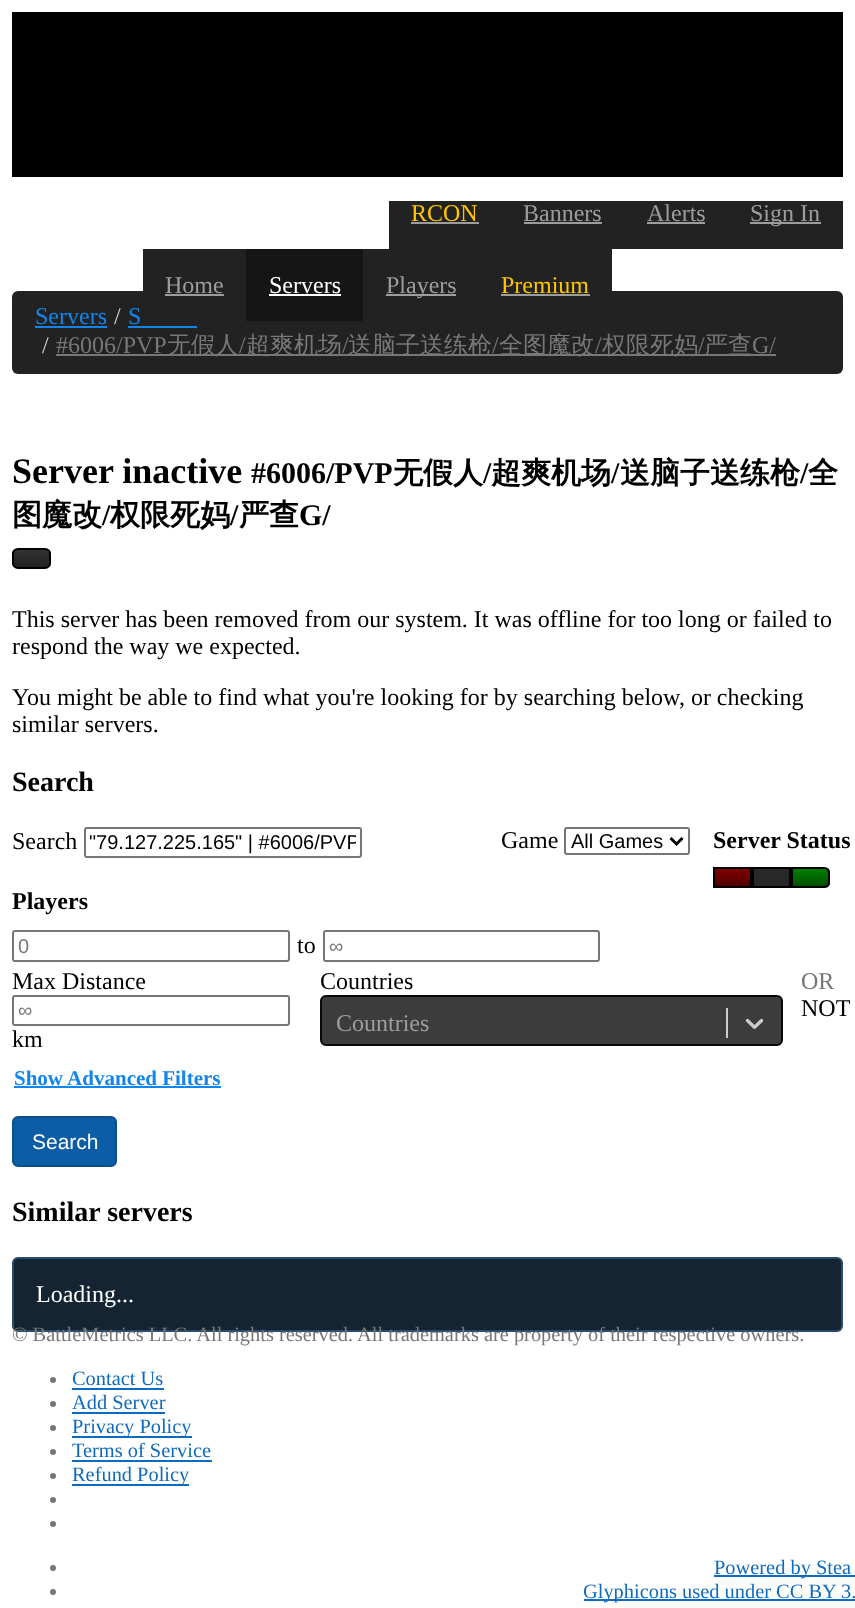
<svg xmlns="http://www.w3.org/2000/svg" width="855" height="1608" viewBox="0 0 855 1608">
  <defs>
    <clipPath id="clip1"><rect x="12" y="548" width="39" height="21" rx="6"/></clipPath>
    <linearGradient id="g1" gradientUnits="userSpaceOnUse" x1="32" y1="549" x2="32" y2="567"><stop offset="0" stop-color="rgb(51,51,51)"/><stop offset="1" stop-color="rgb(34,34,34)"/></linearGradient>
    <clipPath id="clip2"><rect x="90" y="830" width="266" height="25"/></clipPath>
    <linearGradient id="g2" gradientUnits="userSpaceOnUse" x1="732" y1="869" x2="732" y2="887"><stop offset="0" stop-color="rgb(128,0,0)"/><stop offset="1" stop-color="rgb(76,0,0)"/></linearGradient>
    <clipPath id="clip3"><path d="M791 867H824C827.5 867 830 869.5 830 873V882C830 885.5 827.5 888 824 888H791Z"/></clipPath>
    <linearGradient id="g3" gradientUnits="userSpaceOnUse" x1="810" y1="869" x2="810" y2="887"><stop offset="0" stop-color="rgb(0,128,0)"/><stop offset="1" stop-color="rgb(0,76,0)"/></linearGradient>
  </defs>
  <rect width="100%" height="100%" fill="rgb(255,255,255)"/>
  <rect x="12" y="12" width="831" height="165" fill="rgb(0,0,0)"/>
  <rect x="389" y="201" width="454" height="48" fill="rgb(34,34,34)"/>
  <text x="411" y="221" font-family="Liberation Serif" font-size="24" fill="rgb(255,198,0)">RCON</text>
  <rect x="411" y="222" width="68" height="2" fill="rgb(157,157,157)"/>
  <text x="523" y="221" font-family="Liberation Serif" font-size="24" fill="rgb(157,157,157)">Banners</text>
  <rect x="524" y="222" width="78" height="2" fill="rgb(157,157,157)"/>
  <text x="647" y="221" font-family="Liberation Serif" font-size="24" fill="rgb(157,157,157)">Alerts</text>
  <rect x="647" y="222" width="58" height="2" fill="rgb(157,157,157)"/>
  <rect x="750" y="222" width="71" height="2" fill="rgb(157,157,157)"/>
  <text x="750" y="221" font-family="Liberation Serif" font-size="24" fill="rgb(157,157,157)">Sign In</text>
  <rect x="143" y="249" width="103" height="42" fill="rgb(34,34,34)"/>
  <rect x="12" y="291" width="831" height="83" rx="6" fill="rgb(34,34,34)"/>
  <text x="165" y="293" font-family="Liberation Serif" font-size="24" fill="rgb(157,157,157)">Home</text>
  <rect x="165" y="294" width="59" height="2" fill="rgb(157,157,157)"/>
  <rect x="246" y="249" width="117" height="72" fill="rgb(21,21,21)"/>
  <text x="269" y="293" font-family="Liberation Serif" font-size="24" fill="rgb(255,255,255)">Servers</text>
  <rect x="269" y="294" width="72" height="2" fill="rgb(255,255,255)"/>
  <rect x="363" y="249" width="249" height="42" fill="rgb(34,34,34)"/>
  <rect x="386" y="294" width="70" height="2" fill="rgb(157,157,157)"/>
  <text x="386" y="293" font-family="Liberation Serif" font-size="24" fill="rgb(157,157,157)">Players</text>
  <text x="501" y="293" font-family="Liberation Serif" font-size="24" fill="rgb(255,198,0)">Premium</text>
  <rect x="501" y="294" width="89" height="2" fill="rgb(157,157,157)"/>
  <text x="35" y="324" font-family="Liberation Serif" font-size="24" fill="rgb(17,133,236)">Servers</text>
  <rect x="35" y="326" width="72" height="2" fill="rgb(17,133,236)"/>
  <text x="114" y="324" font-family="Liberation Serif" font-size="24" fill="rgb(204,204,204)">/</text>
  <text x="128" y="324" font-family="Liberation Serif" font-size="24" fill="rgb(17,133,236)">S</text>
  <rect x="128" y="326" width="69" height="2" fill="rgb(17,133,236)"/>
  <text x="42" y="353" font-family="Liberation Serif" font-size="24" fill="rgb(204,204,204)">/</text>
  <text x="56" y="353" font-family="Liberation Serif" font-size="24" fill="rgb(119,119,119)">#6006/PVP</text>
  <rect x="56" y="354" width="720" height="2" fill="rgb(119,119,119)"/>
  <text x="167" y="353" font-family="WenQuanYi Zen Hei" font-size="24" font-weight="500" fill="rgb(119,119,119)">无假人</text>
  <text x="239" y="353" font-family="Liberation Serif" font-size="24" fill="rgb(119,119,119)">/</text>
  <text x="246" y="353" font-family="WenQuanYi Zen Hei" font-size="24" font-weight="500" fill="rgb(119,119,119)">超爽机场</text>
  <text x="342" y="353" font-family="Liberation Serif" font-size="24" fill="rgb(119,119,119)">/</text>
  <text x="348" y="353" font-family="WenQuanYi Zen Hei" font-size="24" font-weight="500" fill="rgb(119,119,119)">送脑子送练枪</text>
  <text x="492" y="353" font-family="Liberation Serif" font-size="24" fill="rgb(119,119,119)">/</text>
  <text x="499" y="353" font-family="WenQuanYi Zen Hei" font-size="24" font-weight="500" fill="rgb(119,119,119)">全图魔改</text>
  <text x="595" y="353" font-family="Liberation Serif" font-size="24" fill="rgb(119,119,119)">/</text>
  <text x="602" y="353" font-family="WenQuanYi Zen Hei" font-size="24" font-weight="500" fill="rgb(119,119,119)">权限死妈</text>
  <text x="698" y="353" font-family="Liberation Serif" font-size="24" fill="rgb(119,119,119)">/</text>
  <text x="704" y="353" font-family="WenQuanYi Zen Hei" font-size="24" font-weight="500" fill="rgb(119,119,119)">严查</text>
  <text x="752" y="353" font-family="Liberation Serif" font-size="24" fill="rgb(119,119,119)">G/</text>
  <text x="12" y="483" font-family="Liberation Serif" font-size="36" font-weight="bold" fill="rgb(0,0,0)">Server inactive</text>
  <text x="251" y="483" font-family="Liberation Serif" font-size="30" font-weight="bold" fill="rgb(0,0,0)">#6006/PVP</text>
  <text x="393" y="483" font-family="WenQuanYi Zen Hei" font-size="30" font-weight="bold" fill="rgb(0,0,0)">无假人</text>
  <text x="483" y="483" font-family="Liberation Serif" font-size="30" font-weight="bold" fill="rgb(0,0,0)">/</text>
  <text x="491" y="483" font-family="WenQuanYi Zen Hei" font-size="30" font-weight="bold" fill="rgb(0,0,0)">超爽机场</text>
  <text x="611" y="483" font-family="Liberation Serif" font-size="30" font-weight="bold" fill="rgb(0,0,0)">/</text>
  <text x="620" y="483" font-family="WenQuanYi Zen Hei" font-size="30" font-weight="bold" fill="rgb(0,0,0)">送脑子送练枪</text>
  <text x="800" y="483" font-family="Liberation Serif" font-size="30" font-weight="bold" fill="rgb(0,0,0)">/</text>
  <g font-family="WenQuanYi Zen Hei" font-size="30" font-weight="bold" fill="rgb(0,0,0)">
    <text x="808" y="483">全</text>
    <text x="12" y="525">图魔改</text>
  </g>
  <text x="102" y="525" font-family="Liberation Serif" font-size="30" font-weight="bold" fill="rgb(0,0,0)">/</text>
  <text x="110" y="525" font-family="WenQuanYi Zen Hei" font-size="30" font-weight="bold" fill="rgb(0,0,0)">权限死妈</text>
  <text x="230" y="525" font-family="Liberation Serif" font-size="30" font-weight="bold" fill="rgb(0,0,0)">/</text>
  <text x="239" y="525" font-family="WenQuanYi Zen Hei" font-size="30" font-weight="bold" fill="rgb(0,0,0)">严查</text>
  <text x="299" y="525" font-family="Liberation Serif" font-size="30" font-weight="bold" fill="rgb(0,0,0)">G/</text>
  <g clip-path="url(#clip1)">
    <rect x="12" y="549" width="39" height="18" fill="url(#g1)"/>
  </g>
  <rect x="13" y="549" width="37" height="19" rx="5" fill="none" stroke="rgb(0,0,0)" stroke-width="2"/>
  <g font-family="Liberation Serif" font-size="24" fill="rgb(0,0,0)">
    <text>
      <tspan x="12" y="627">This server has been removed from our system. It was offline for too long or failed to</tspan>
      <tspan x="12" y="654">respond the way we expected.</tspan>
    </text>
    <text>
      <tspan x="12" y="705">You might be able to find what you're looking for by searching below, or checking</tspan>
      <tspan x="12" y="732">similar servers.</tspan>
    </text>
  </g>
  <text x="12" y="791" font-family="Liberation Serif" font-size="28" font-weight="bold" fill="rgb(0,0,0)">Search</text>
  <text x="12" y="849" font-family="Liberation Serif" font-size="24" fill="rgb(0,0,0)">Search</text>
  <rect x="85" y="828" width="276" height="29" rx="2" fill="none" stroke="rgb(118,118,118)" stroke-width="2"/>
  <g clip-path="url(#clip2)">
    <text x="89" y="849" font-family="Liberation Sans" font-size="20" fill="rgb(0,0,0)">"79.127.225.165" | #6006/PVP</text>
  </g>
  <text x="501" y="848" font-family="Liberation Serif" font-size="24" fill="rgb(0,0,0)">Game</text>
  <rect x="565" y="828" width="124" height="26" rx="2" fill="none" stroke="rgb(118,118,118)" stroke-width="2"/>
  <path d="M670.5 838L676.5 844L682.5 838" fill="none" stroke="rgb(0,0,0)" stroke-width="3"/>
  <text x="571" y="848" font-family="Liberation Sans" font-size="20" fill="rgb(0,0,0)">All Games</text>
  <text x="713" y="848" font-family="Liberation Serif" font-size="24" font-weight="bold" fill="rgb(0,0,0)">Server Status</text>
  <rect x="715" y="869" width="35" height="17" fill="url(#g2)"/>
  <rect x="714" y="868" width="37" height="19" fill="none" stroke="rgb(0,0,0)" stroke-width="2"/>
  <rect x="753" y="868" width="37" height="19" fill="rgb(40,40,40)" stroke="rgb(0,0,0)" stroke-width="2"/>
  <g clip-path="url(#clip3)">
    <rect x="793" y="869" width="37" height="18" fill="url(#g3)"/>
  </g>
  <path d="M792 868H824C827 868 829 870 829 873V882C829 885 827 887 824 887H792Z" fill="none" stroke="rgb(0,0,0)" stroke-width="2"/>
  <text x="12" y="909" font-family="Liberation Serif" font-size="24" font-weight="bold" fill="rgb(0,0,0)">Players</text>
  <rect x="13" y="931" width="276" height="30" rx="2" fill="none" stroke="rgb(118,118,118)" stroke-width="2"/>
  <text x="18" y="953" font-family="Liberation Sans" font-size="20" fill="rgb(119,119,119)">0</text>
  <text x="297" y="953" font-family="Liberation Serif" font-size="24" fill="rgb(0,0,0)">to</text>
  <rect x="324" y="931" width="275" height="30" rx="2" fill="none" stroke="rgb(118,118,118)" stroke-width="2"/>
  <text x="329" y="953" font-family="Liberation Sans" font-size="20" fill="rgb(119,119,119)">∞</text>
  <text x="12" y="989" font-family="Liberation Serif" font-size="24" fill="rgb(0,0,0)">Max Distance</text>
  <rect x="13" y="996" width="276" height="29" rx="2" fill="none" stroke="rgb(118,118,118)" stroke-width="2"/>
  <text x="18" y="1017" font-family="Liberation Sans" font-size="20" fill="rgb(119,119,119)">∞</text>
  <g font-family="Liberation Serif" font-size="24" fill="rgb(0,0,0)">
    <text x="12" y="1047">km</text>
    <text x="320" y="989">Countries</text>
  </g>
  <text x="801" y="989" font-family="Liberation Serif" font-size="24" fill="rgb(119,119,119)">OR</text>
  <text x="801" y="1016" font-family="Liberation Serif" font-size="24" fill="rgb(0,0,0)">NOT</text>
  <rect x="321" y="996" width="461" height="49" rx="5" fill="rgb(60,60,60)" stroke="rgb(8,8,8)" stroke-width="2"/>
  <text x="336" y="1031" font-family="Liberation Serif" font-size="24" fill="rgb(157,157,157)">Countries</text>
  <rect x="726" y="1008" width="2" height="30" fill="rgb(204,204,204)"/>
  <image x="745" y="1018" width="19" height="11" href="pic1.png"/>
  <text x="14" y="1085" font-family="Liberation Serif" font-size="21" font-weight="bold" fill="rgb(17,133,236)">Show Advanced Filters</text>
  <rect x="14" y="1086" width="207" height="2" fill="rgb(17,133,236)"/>
  <rect x="13" y="1117" width="103" height="49" rx="5" fill="rgb(12,93,165)" stroke="rgb(10,80,141)" stroke-width="2"/>
  <text x="32" y="1149" font-family="Liberation Sans" font-size="21" fill="rgb(255,255,255)">Search</text>
  <text x="12" y="1221" font-family="Liberation Serif" font-size="28" font-weight="bold" fill="rgb(0,0,0)">Similar servers</text>
  <rect x="13" y="1258" width="829" height="73" rx="5" fill="rgb(20,36,51)" stroke="rgb(42,75,106)" stroke-width="2"/>
  <text x="36" y="1302" font-family="Liberation Serif" font-size="24" fill="rgb(255,255,255)">Loading...</text>
  <text x="12" y="1341" font-family="Liberation Serif" font-size="20.4" fill="rgb(119,119,119)">© BattleMetrics LLC. All rights reserved. All trademarks are property of their respective owners.</text>
  <circle cx="53" cy="1380" r="3" fill="rgb(119,119,119)"/>
  <text x="72" y="1385" font-family="Liberation Serif" font-size="20.4" fill="rgb(14,106,188)">Contact Us</text>
  <rect x="72" y="1388" width="92" height="2" fill="rgb(14,106,188)"/>
  <circle cx="53" cy="1404" r="3" fill="rgb(119,119,119)"/>
  <text x="72" y="1409" font-family="Liberation Serif" font-size="20.4" fill="rgb(14,106,188)">Add Server</text>
  <rect x="72" y="1412" width="93" height="2" fill="rgb(14,106,188)"/>
  <circle cx="53" cy="1428" r="3" fill="rgb(119,119,119)"/>
  <rect x="72" y="1436" width="120" height="2" fill="rgb(14,106,188)"/>
  <text x="72" y="1433" font-family="Liberation Serif" font-size="20.4" fill="rgb(14,106,188)">Privacy Policy</text>
  <circle cx="53" cy="1452" r="3" fill="rgb(119,119,119)"/>
  <text x="72" y="1457" font-family="Liberation Serif" font-size="20.4" fill="rgb(14,106,188)">Terms of Service</text>
  <rect x="72" y="1460" width="140" height="2" fill="rgb(14,106,188)"/>
  <circle cx="53" cy="1476" r="3" fill="rgb(119,119,119)"/>
  <rect x="72" y="1484" width="117" height="2" fill="rgb(14,106,188)"/>
  <text x="72" y="1481" font-family="Liberation Serif" font-size="20.4" fill="rgb(14,106,188)">Refund Policy</text>
  <circle cx="53" cy="1500" r="3" fill="rgb(119,119,119)"/>
  <circle cx="53" cy="1524" r="3" fill="rgb(119,119,119)"/>
  <circle cx="53" cy="1568" r="3" fill="rgb(119,119,119)"/>
  <rect x="714" y="1575" width="141" height="2" fill="rgb(14,106,188)"/>
  <text x="714" y="1574" font-family="Liberation Serif" font-size="20.4" fill="rgb(14,106,188)">Powered by Stea</text>
  <circle cx="53" cy="1592" r="3" fill="rgb(119,119,119)"/>
  <rect x="584" y="1599" width="271" height="2" fill="rgb(14,106,188)"/>
  <text x="583" y="1598" font-family="Liberation Serif" font-size="20.4" fill="rgb(14,106,188)">Glyphicons used under CC BY 3.</text>
</svg>
